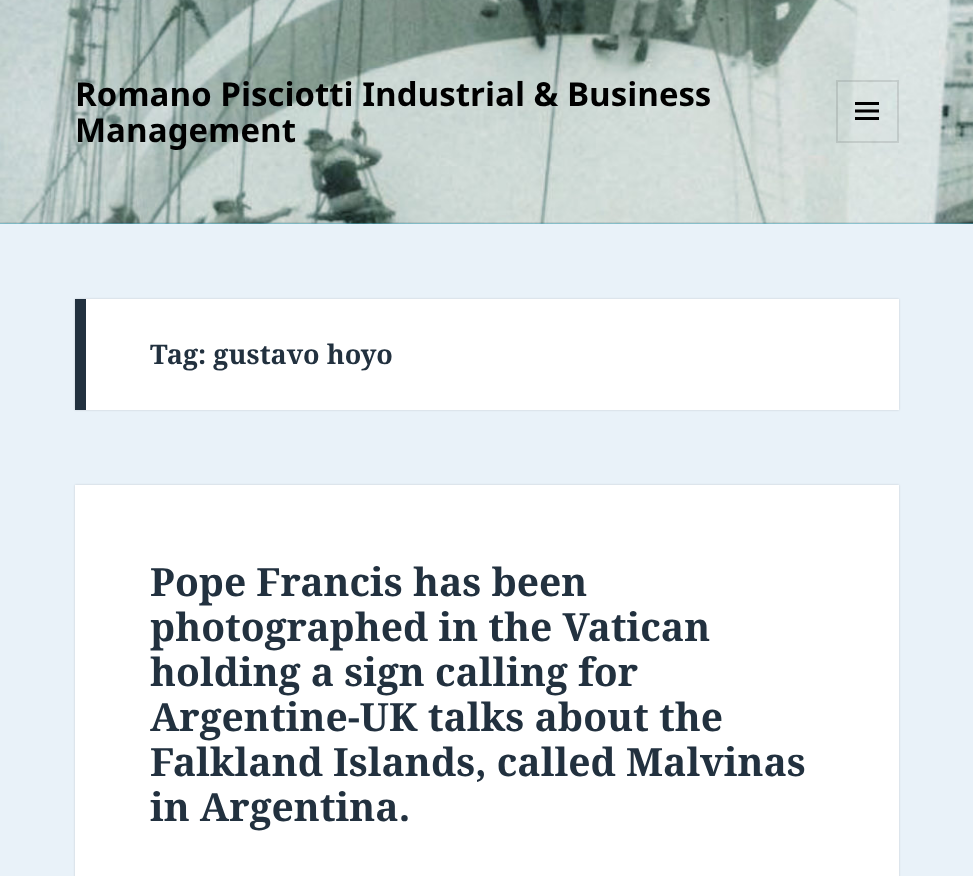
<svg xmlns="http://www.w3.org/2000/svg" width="973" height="876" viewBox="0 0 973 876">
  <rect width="100%" height="100%" fill="rgb(233,242,249)"/>
  <rect x="0" y="223" width="973" height="1" fill="rgb(85,195,220)"/>
  <image x="0" y="0" width="973" height="224" href="pic1.png"/>
  <rect x="0" y="222" width="973" height="2" fill="rgba(34,49,63,0.1)"/>
  <g font-family="Noto Sans" font-size="33" font-weight="bold" fill="rgb(0,0,0)">
    <text>
      <tspan x="75" y="106">Romano Pisciotti Industrial &amp; Business</tspan>
      <tspan x="75" y="142">Management</tspan>
    </text>
  </g>
  <rect x="837" y="81" width="61" height="61" fill="none" stroke="rgba(0,0,0,0.1)" stroke-width="2"/>
  <image x="855" y="102" width="24" height="18" href="pic2.png"/>
  <rect x="75" y="299" width="824" height="111" fill="rgba(0,0,0,0.15)" filter="blur(1px)"/>
  <rect x="86" y="299" width="813" height="111" fill="rgb(255,255,255)"/>
  <rect x="75" y="299" width="11" height="111" fill="rgb(34,49,63)"/>
  <text x="150" y="364" font-family="Noto Serif" font-size="27" font-weight="bold" fill="rgb(34,49,63)">Tag: gustavo hoyo</text>
  <rect x="75" y="485" width="824" height="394" fill="rgba(0,0,0,0.15)" filter="blur(1px)"/>
  <rect x="75" y="485" width="824" height="391" fill="rgb(255,255,255)"/>
  <g font-family="Noto Serif" font-size="39" font-weight="bold" fill="rgb(34,49,63)">
    <text>
      <tspan x="150" y="596">Pope Francis has been</tspan>
      <tspan x="150" y="641">photographed in the Vatican</tspan>
      <tspan x="150" y="686">holding a sign calling for</tspan>
      <tspan x="150" y="731">Argentine-UK talks about the</tspan>
      <tspan x="150" y="776">Falkland Islands, called Malvinas</tspan>
      <tspan x="150" y="821">in Argentina.</tspan>
    </text>
  </g>
</svg>
